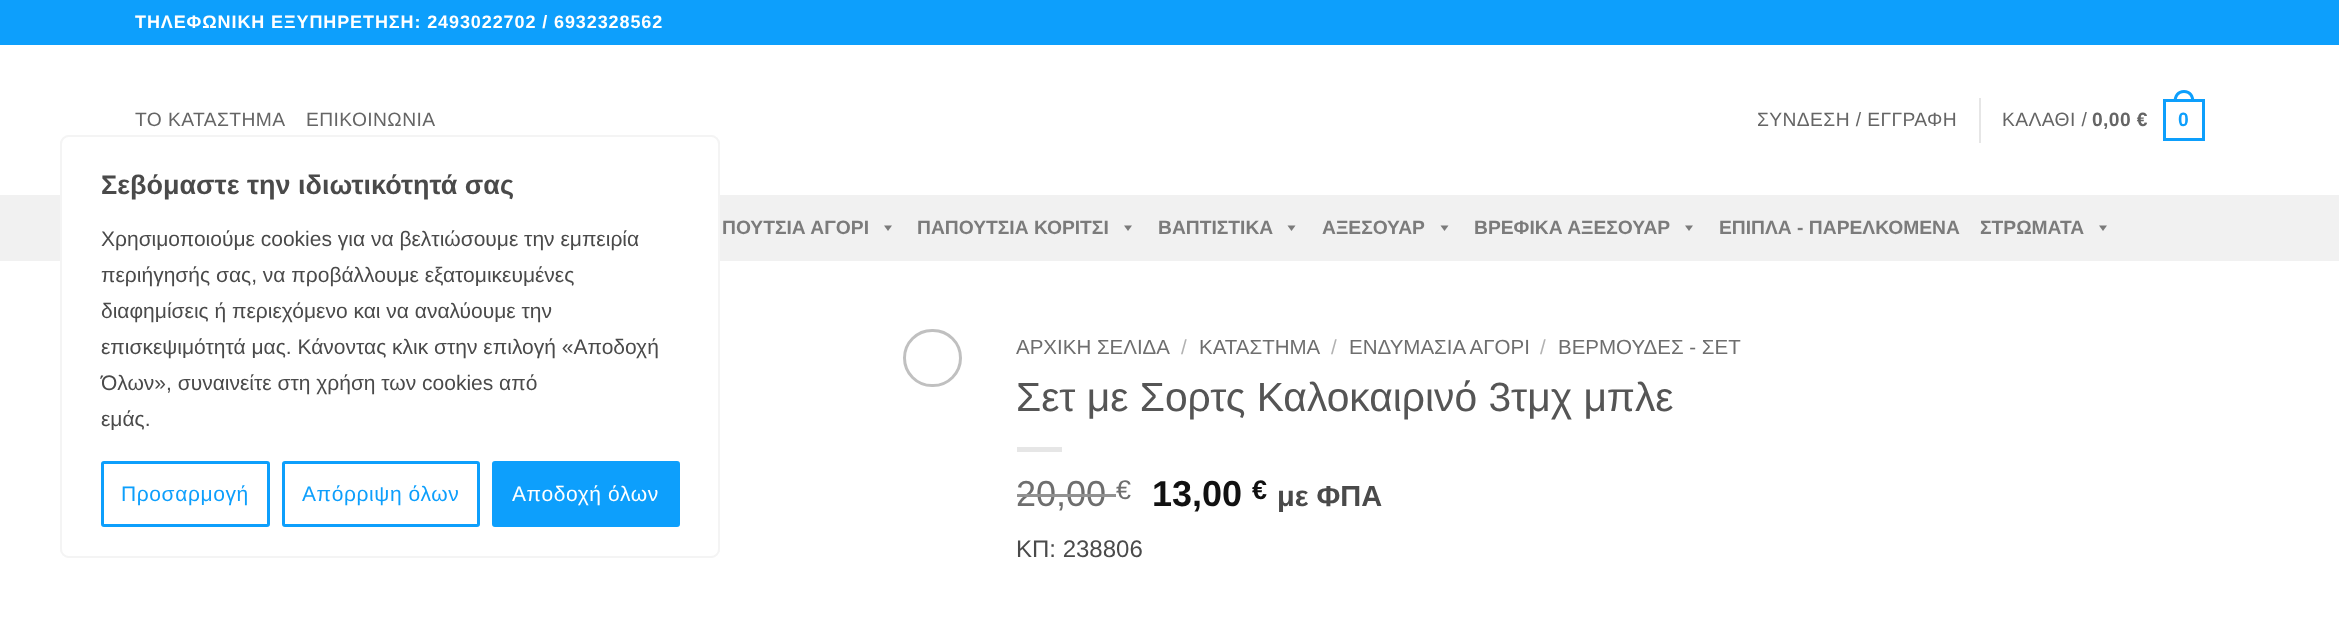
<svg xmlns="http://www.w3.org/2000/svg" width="2339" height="617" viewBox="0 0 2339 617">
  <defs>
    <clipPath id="clip1"><rect x="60" y="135" width="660" height="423" rx="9"/></clipPath>
  </defs>
  <rect width="100%" height="100%" fill="rgb(255,255,255)"/>
  <rect x="0" y="0" width="2339" height="45" fill="rgb(13,159,252)"/>
  <text x="135" y="28" font-family="Liberation Sans" font-size="18" font-weight="bold" letter-spacing="0.9" fill="rgb(255,255,255)">ΤΗΛΕΦΩΝΙΚΗ ΕΞΥΠΗΡΕΤΗΣΗ: 2493022702 / 6932328562</text>
  <g font-family="Liberation Sans" font-size="19.25" letter-spacing="0.4" fill="rgb(101,101,101)">
    <text x="135" y="126">ΤΟ ΚΑΤΑΣΤΗΜΑ</text>
    <text x="306" y="126">ΕΠΙΚΟΙΝΩΝΙΑ</text>
    <text x="1757" y="126">ΣΥΝΔΕΣΗ / ΕΓΓΡΑΦΗ</text>
  </g>
  <rect x="1979" y="98" width="2" height="45" fill="rgb(230,230,230)"/>
  <text x="2002" y="126" font-family="Liberation Sans" font-size="19.25" letter-spacing="0.4" fill="rgb(101,101,101)">ΚΑΛΑΘΙ /</text>
  <text x="2092" y="126" font-family="Liberation Sans" font-size="19.25" font-weight="bold" letter-spacing="0.4" fill="rgb(101,101,101)">0,00 €</text>
  <rect x="2164.5" y="100.5" width="39" height="39" fill="none" stroke="rgb(13,159,252)" stroke-width="3"/>
  <path d="M2184 90C2191 90 2194.5 95.5 2194.5 102H2173.5C2173.5 95.5 2177 90 2184 90ZM2184 93C2189.5 93 2191.5 97.5 2191.5 102H2176.5C2176.5 97.5 2178.5 93 2184 93Z" fill="rgb(13,159,252)" fill-rule="evenodd"/>
  <text x="2178" y="126" font-family="Liberation Sans" font-size="19.25" font-weight="bold" letter-spacing="0.4" fill="rgb(13,159,252)">0</text>
  <rect x="0" y="195" width="2339" height="66" fill="rgb(241,241,241)"/>
  <text x="722" y="234" font-family="Liberation Sans" font-size="19.25" font-weight="bold" fill="rgb(123,123,123)">ΠΟΥΤΣΙΑ ΑΓΟΡΙ</text>
  <path d="M892 225.5L888 231L884 225.5Z" fill="rgb(123,123,123)"/>
  <text x="917" y="234" font-family="Liberation Sans" font-size="19.25" font-weight="bold" fill="rgb(123,123,123)">ΠΑΠΟΥΤΣΙΑ ΚΟΡΙΤΣΙ</text>
  <path d="M1132 225.5L1128 231L1124 225.5Z" fill="rgb(123,123,123)"/>
  <text x="1158" y="234" font-family="Liberation Sans" font-size="19.25" font-weight="bold" fill="rgb(123,123,123)">ΒΑΠΤΙΣΤΙΚΑ</text>
  <path d="M1295.5 225.5L1291.5 231L1287.5 225.5Z" fill="rgb(123,123,123)"/>
  <text x="1322" y="234" font-family="Liberation Sans" font-size="19.25" font-weight="bold" fill="rgb(123,123,123)">ΑΞΕΣΟΥΑΡ</text>
  <path d="M1448.5 225.5L1444.5 231L1440.5 225.5Z" fill="rgb(123,123,123)"/>
  <text x="1474" y="234" font-family="Liberation Sans" font-size="19.25" font-weight="bold" fill="rgb(123,123,123)">ΒΡΕΦΙΚΑ ΑΞΕΣΟΥΑΡ</text>
  <path d="M1693 225.5L1689 231L1685 225.5Z" fill="rgb(123,123,123)"/>
  <g font-family="Liberation Sans" font-size="19.25" font-weight="bold" fill="rgb(123,123,123)">
    <text x="1719" y="234">ΕΠΙΠΛΑ - ΠΑΡΕΛΚΟΜΕΝΑ</text>
    <text x="1980" y="234">ΣΤΡΩΜΑΤΑ</text>
  </g>
  <path d="M2107 225.5L2103 231L2099 225.5Z" fill="rgb(123,123,123)"/>
  <rect x="904.5" y="330.5" width="56" height="55" rx="27.5" fill="none" stroke="rgb(192,192,192)" stroke-width="3"/>
  <text x="1016" y="354" font-family="Liberation Sans" font-size="20.5" fill="rgb(110,110,110)">ΑΡΧΙΚΗ ΣΕΛΙΔΑ</text>
  <text x="1181" y="354" font-family="Liberation Sans" font-size="20.5" fill="rgb(178,178,178)">/</text>
  <text x="1199" y="354" font-family="Liberation Sans" font-size="20.5" fill="rgb(110,110,110)">ΚΑΤΑΣΤΗΜΑ</text>
  <text x="1331" y="354" font-family="Liberation Sans" font-size="20.5" fill="rgb(178,178,178)">/</text>
  <text x="1349" y="354" font-family="Liberation Sans" font-size="20.5" fill="rgb(110,110,110)">ΕΝΔΥΜΑΣΙΑ ΑΓΟΡΙ</text>
  <text x="1540" y="354" font-family="Liberation Sans" font-size="20.5" fill="rgb(178,178,178)">/</text>
  <text x="1558" y="354" font-family="Liberation Sans" font-size="20.5" fill="rgb(110,110,110)">ΒΕΡΜΟΥΔΕΣ - ΣΕΤ</text>
  <text x="1016" y="411" font-family="Liberation Sans" font-size="40.75" fill="rgb(85,85,85)">Σετ με Σορτς Καλοκαιρινό 3τμχ μπλε</text>
  <rect x="1017" y="447" width="45" height="5" fill="rgb(230,230,230)"/>
  <text x="1016" y="506" font-family="Liberation Sans" font-size="36" fill="rgb(110,110,110)">20,00</text>
  <rect x="1017" y="494" width="99" height="3" fill="rgb(146,146,146)"/>
  <text x="1116" y="499" font-family="Liberation Sans" font-size="27" fill="rgb(110,110,110)">€</text>
  <text x="1152" y="506" font-family="Liberation Sans" font-size="36" font-weight="bold" fill="rgb(17,17,17)">13,00</text>
  <text x="1252" y="499" font-family="Liberation Sans" font-size="27" font-weight="bold" fill="rgb(17,17,17)">€</text>
  <text x="1277" y="506" font-family="Liberation Sans" font-size="29" font-weight="bold" fill="rgb(74,74,74)">με ΦΠΑ</text>
  <text x="1016" y="557" font-family="Liberation Sans" font-size="24" fill="rgb(74,74,74)">ΚΠ: 238806</text>
  <g clip-path="url(#clip1)">
    <rect x="60" y="134" width="660" height="423" rx="9" fill="rgba(172,171,171,0.3)" filter="blur(7.5px)"/>
  </g>
  <rect x="61" y="136" width="658" height="421" rx="8" fill="rgb(255,255,255)" stroke="rgb(244,244,244)" stroke-width="2"/>
  <text x="101" y="194" font-family="Liberation Sans" font-size="27" font-weight="bold" fill="rgb(74,74,74)">Σεβόμαστε την ιδιωτικότητά σας</text>
  <g font-family="Liberation Sans" font-size="21" fill="rgb(74,74,74)">
    <text>
      <tspan x="101" y="246">Χρησιμοποιούμε cookies για να βελτιώσουμε την εμπειρία</tspan>
      <tspan x="101" y="282">περιήγησής σας, να προβάλλουμε εξατομικευμένες</tspan>
      <tspan x="101" y="318">διαφημίσεις ή περιεχόμενο και να αναλύουμε την</tspan>
      <tspan x="101" y="354">επισκεψιμότητά μας. Κάνοντας κλικ στην επιλογή «Αποδοχή</tspan>
      <tspan x="101" y="390">Όλων», συναινείτε στη χρήση των cookies από</tspan>
      <tspan x="101" y="426">εμάς.</tspan>
    </text>
  </g>
  <rect x="102.5" y="462.5" width="166" height="63" rx="1.5" fill="none" stroke="rgb(13,159,252)" stroke-width="3"/>
  <text x="121" y="501" font-family="Liberation Sans" font-size="21" letter-spacing="0.6" fill="rgb(13,159,252)">Προσαρμογή</text>
  <rect x="283.5" y="462.5" width="195" height="63" rx="1.5" fill="none" stroke="rgb(13,159,252)" stroke-width="3"/>
  <text x="302" y="501" font-family="Liberation Sans" font-size="21" letter-spacing="0.6" fill="rgb(13,159,252)">Απόρριψη όλων</text>
  <rect x="493.5" y="462.5" width="185" height="63" rx="1.5" fill="rgb(13,159,252)" stroke="rgb(13,159,252)" stroke-width="3"/>
  <text x="512" y="501" font-family="Liberation Sans" font-size="21" letter-spacing="0.6" fill="rgb(255,255,255)">Αποδοχή όλων</text>
</svg>
